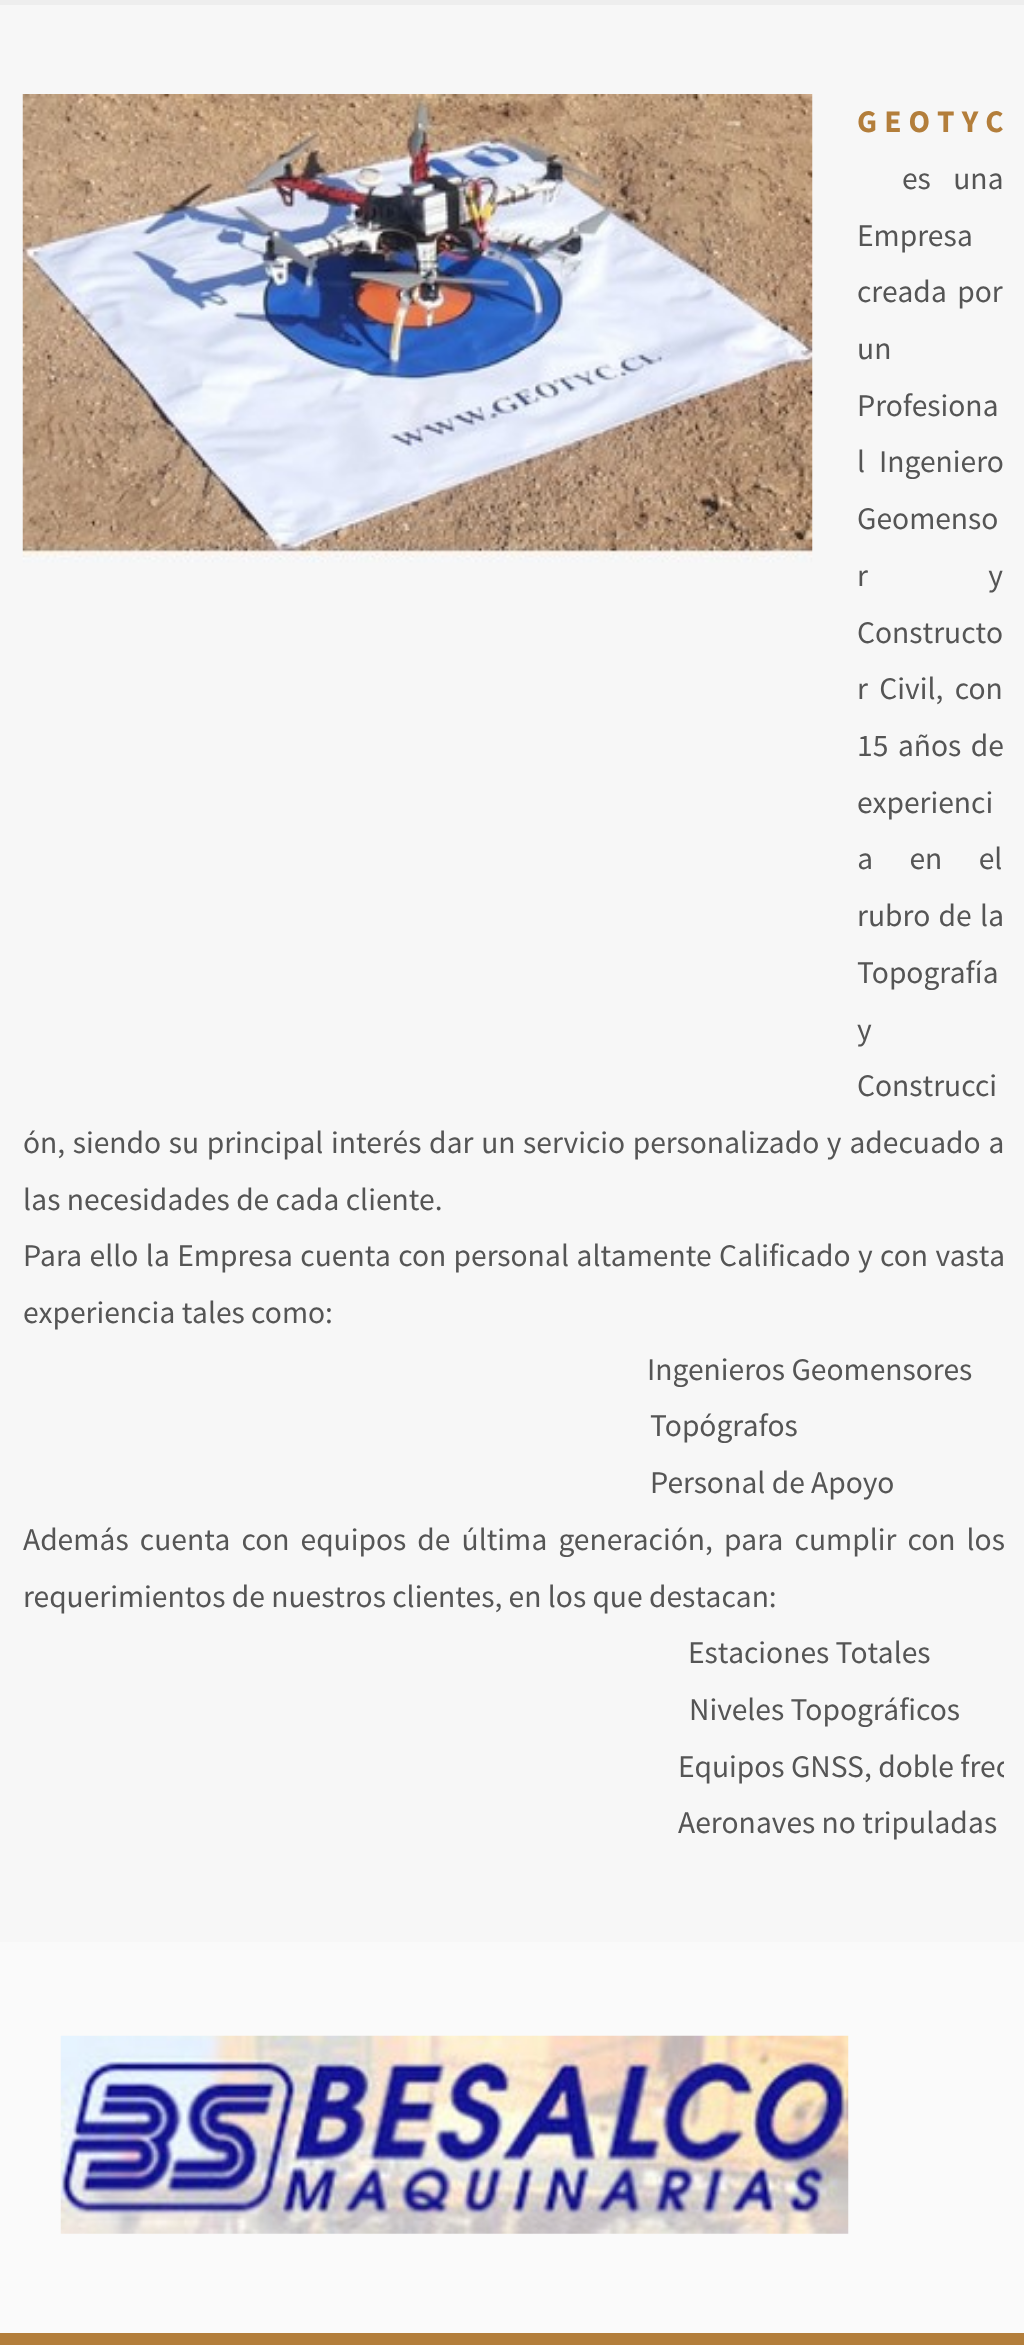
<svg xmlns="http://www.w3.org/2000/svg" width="1024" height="2345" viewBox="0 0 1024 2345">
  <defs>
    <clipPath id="clip1"><rect x="23" y="95" width="981" height="1757"/></clipPath>
  </defs>
  <rect width="100%" height="100%" fill="rgb(247,247,247)"/>
  <rect x="0" y="0" width="1024" height="5" fill="rgb(238,238,238)"/>
  <image x="22" y="94" width="791" height="469" href="pic1.png"/>
  <text x="857" y="132" word-spacing="0.5" font-family="Source Sans Pro" font-size="31.5" font-weight="bold" fill="rgb(179,126,59)">G E O T Y C</text>
  <g font-family="Source Sans Pro" font-size="31.5" fill="rgb(85,85,85)">
    <text x="902" y="189" word-spacing="16">es una</text>
    <text>
      <tspan x="857" y="246">Empresa</tspan>
      <tspan x="857" y="302" word-spacing="4">creada por</tspan>
      <tspan x="857" y="359">un</tspan>
      <tspan x="857" y="416">Profesiona</tspan>
      <tspan x="857" y="472">l</tspan>
    </text>
    <text x="879" y="472">Ingeniero</text>
    <text>
      <tspan x="857" y="529">Geomenso</tspan>
      <tspan x="857" y="586" word-spacing="114">r y</tspan>
      <tspan x="857" y="643">Constructo</tspan>
      <tspan x="857" y="699" word-spacing="5">r Civil, con</tspan>
      <tspan x="857" y="756" word-spacing="3">15 años de</tspan>
      <tspan x="857" y="813">experienci</tspan>
      <tspan x="857" y="869" word-spacing="30">a en el</tspan>
      <tspan x="857" y="926" word-spacing="2">rubro de la</tspan>
      <tspan x="857" y="983">Topografía</tspan>
      <tspan x="857" y="1040">y</tspan>
      <tspan x="857" y="1096">Construcci</tspan>
    </text>
    <text>
      <tspan x="23" y="1153" word-spacing="1.25">ón, siendo su principal interés dar un servicio personalizado y adecuado a</tspan>
      <tspan x="23" y="1210">las necesidades de cada cliente.</tspan>
      <tspan x="23" y="1266" word-spacing="1">Para ello la Empresa cuenta con personal altamente Calificado y con vasta</tspan>
      <tspan x="23" y="1323">experiencia tales como:</tspan>
    </text>
    <text x="647" y="1380">Ingenieros Geomensores</text>
    <text>
      <tspan x="650" y="1436">Topógrafos</tspan>
      <tspan x="650" y="1493">Personal de Apoyo</tspan>
    </text>
    <text>
      <tspan x="23" y="1550" word-spacing="4.75">Además cuenta con equipos de última generación, para cumplir con los</tspan>
      <tspan x="23" y="1607">requerimientos de nuestros clientes, en los que destacan:</tspan>
    </text>
    <text x="688" y="1663">Estaciones Totales</text>
    <text x="689" y="1720">Niveles Topográficos</text>
  </g>
  <g clip-path="url(#clip1)">
    <text x="678" y="1777" font-family="Source Sans Pro" font-size="31.5" fill="rgb(85,85,85)">Equipos GNSS, doble frec</text>
  </g>
  <text x="678" y="1833" font-family="Source Sans Pro" font-size="31.5" fill="rgb(85,85,85)">Aeronaves no tripuladas</text>
  <rect x="0" y="1942" width="1024" height="391" fill="rgb(250,250,250)"/>
  <image x="60" y="2035" width="789" height="199" href="pic2.png"/>
  <rect x="0" y="2333" width="1024" height="12" fill="rgb(179,126,59)"/>
</svg>
